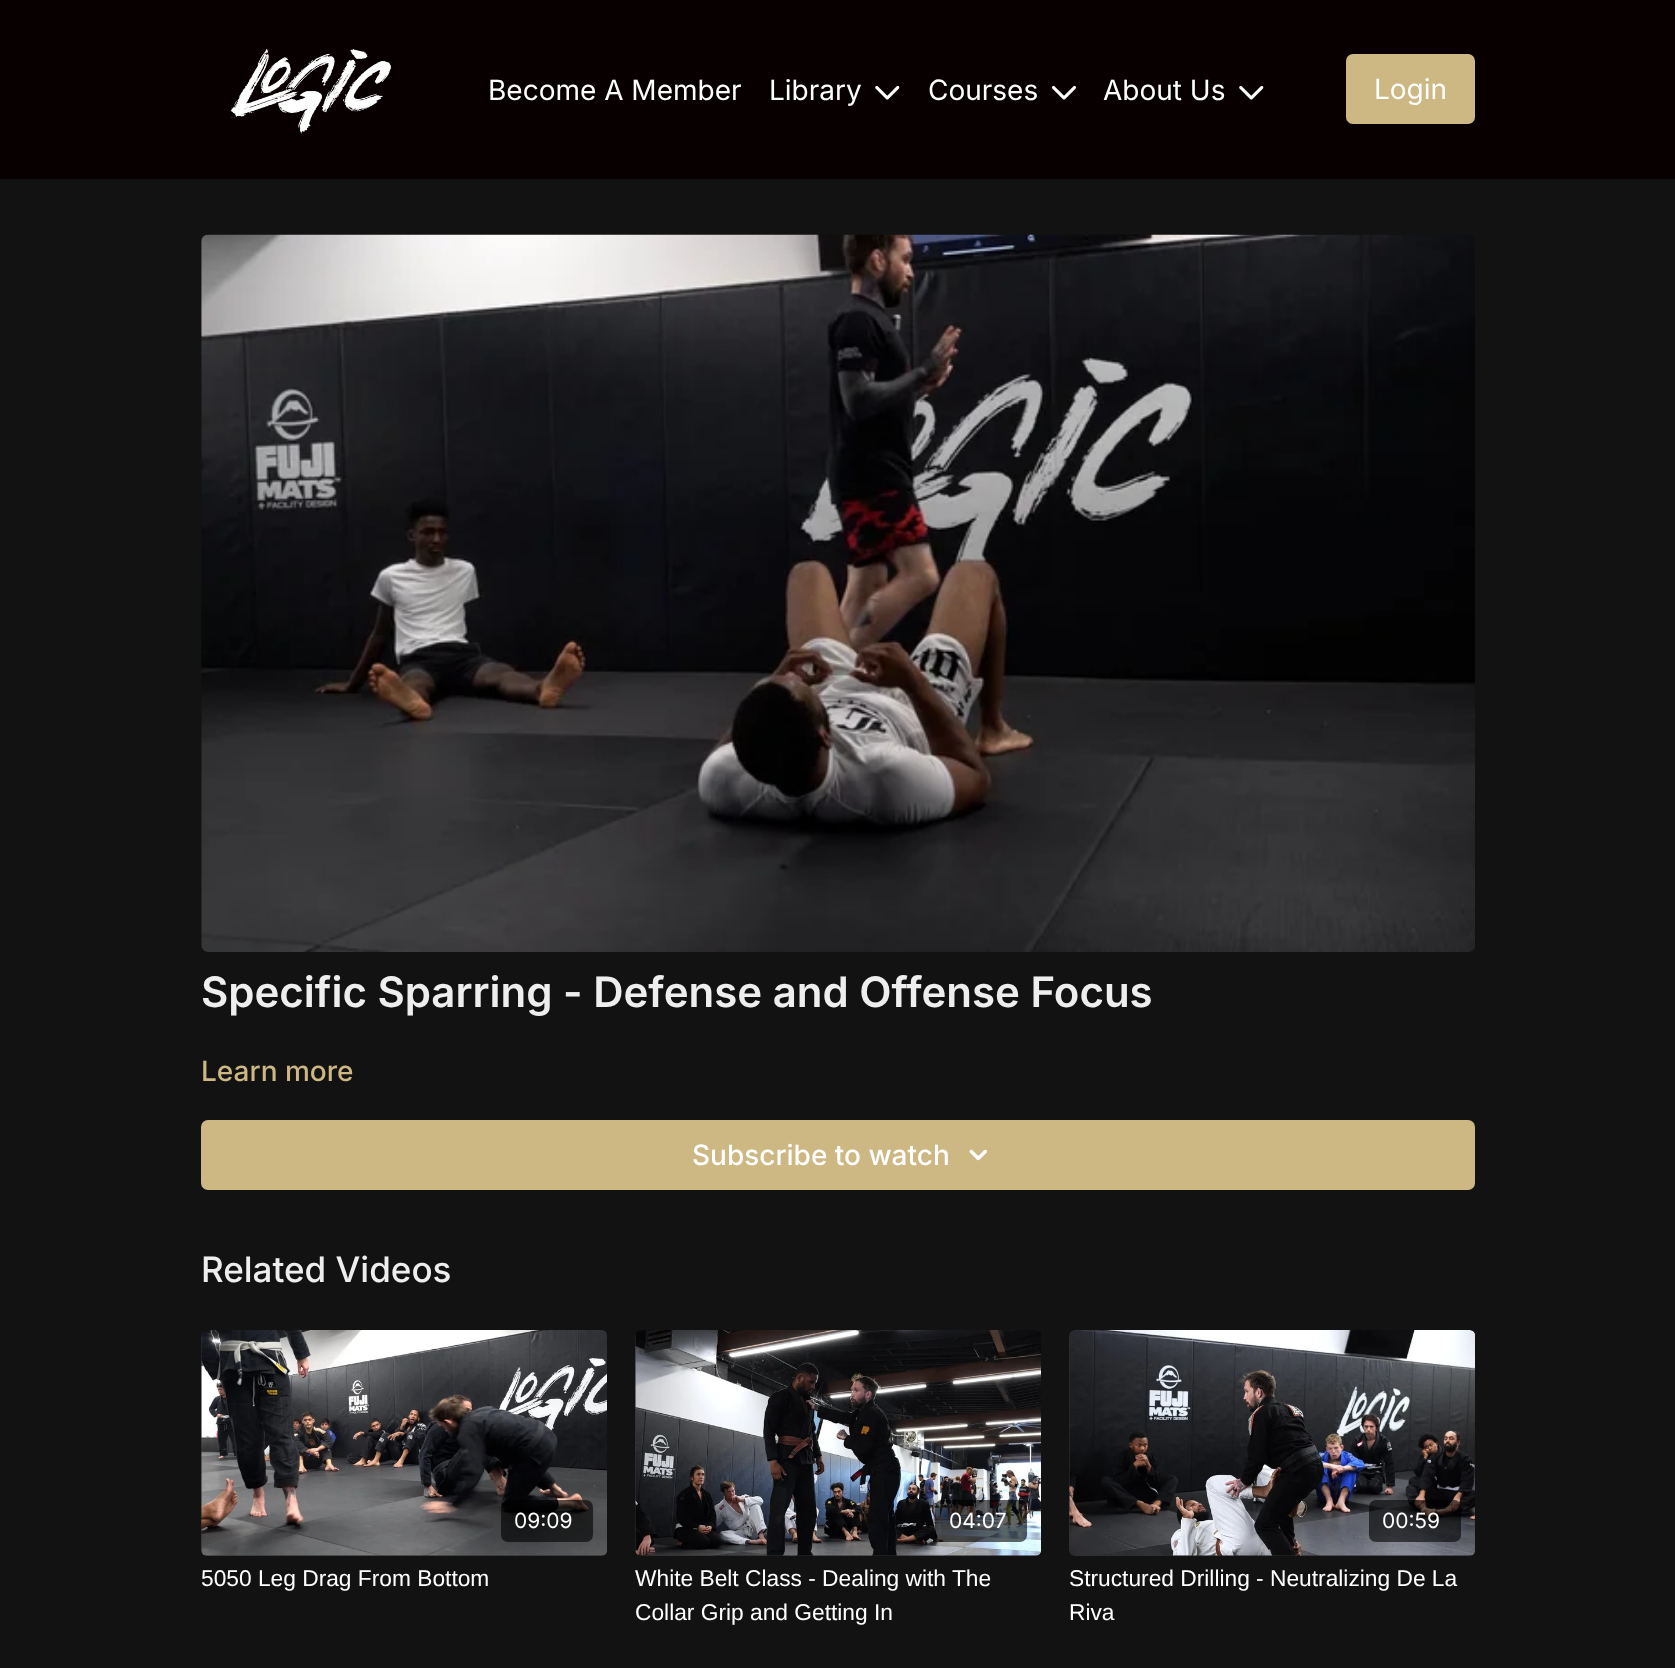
<svg xmlns="http://www.w3.org/2000/svg" width="1675" height="1668" viewBox="0 0 1675 1668">
  <defs>
    <linearGradient id="g1" gradientUnits="userSpaceOnUse" x1="201" y1="1443" x2="607" y2="1443"><stop offset="0.08" stop-color="rgb(49,49,49)"/><stop offset="0.18" stop-color="rgb(46,46,46)"/><stop offset="0.33" stop-color="rgb(44,44,44)"/></linearGradient>
    <linearGradient id="g2" gradientUnits="userSpaceOnUse" x1="635" y1="1443" x2="1041" y2="1443"><stop offset="0.08" stop-color="rgb(49,49,49)"/><stop offset="0.18" stop-color="rgb(46,46,46)"/><stop offset="0.33" stop-color="rgb(44,44,44)"/></linearGradient>
    <linearGradient id="g3" gradientUnits="userSpaceOnUse" x1="1069" y1="1443" x2="1475" y2="1443"><stop offset="0.08" stop-color="rgb(49,49,49)"/><stop offset="0.18" stop-color="rgb(46,46,46)"/><stop offset="0.33" stop-color="rgb(44,44,44)"/></linearGradient>
  </defs>
  <rect width="100%" height="100%" fill="rgb(18,18,18)"/>
  <rect x="0" y="0" width="1675" height="179" fill="rgb(8,0,0)"/>
  <image x="230" y="49" width="162" height="85" href="pic1.png"/>
  <g font-family="Inter" font-size="28" fill="rgb(255,255,255)">
    <text x="488" y="100">Become A Member</text>
    <text x="769" y="100">Library</text>
  </g>
  <image x="875" y="86" width="25" height="14" href="pic2.png"/>
  <text x="928" y="100" font-family="Inter" font-size="28" fill="rgb(255,255,255)">Courses</text>
  <image x="1052" y="86" width="24" height="14" href="pic3.png"/>
  <text x="1103" y="100" font-family="Inter" font-size="28" fill="rgb(255,255,255)">About Us</text>
  <image x="1239" y="86" width="25" height="14" href="pic2.png"/>
  <rect x="1347" y="55" width="127" height="68" rx="6" fill="rgb(205,183,131)" stroke="rgb(205,183,131)" stroke-width="2"/>
  <text x="1374" y="99" font-family="Inter" font-size="28" fill="rgb(255,255,255)">Login</text>
  <image x="201" y="234" width="1274" height="718" href="pic4.png"/>
  <text x="201" y="1007" font-family="Inter" font-size="42" font-weight="600" fill="rgb(238,238,238)">Specific Sparring - Defense and Offense Focus</text>
  <text x="201" y="1081" font-family="Inter" font-size="28" font-weight="500" fill="rgb(205,183,131)">Learn more</text>
  <rect x="201" y="1120" width="1274" height="70" rx="7" fill="rgb(205,183,131)"/>
  <text x="692" y="1165" font-family="Inter" font-size="28" font-weight="500" fill="rgb(255,255,255)">Subscribe to watch</text>
  <image x="969" y="1149" width="18" height="12" href="pic5.png"/>
  <text x="201" y="1282" font-family="Inter" font-size="35" font-weight="500" fill="rgb(238,238,238)">Related Videos</text>
  <rect x="201" y="1330" width="406" height="226" rx="7" fill="url(#g1)"/>
  <image x="201" y="1330" width="406" height="226" href="pic6.png"/>
  <rect x="501" y="1500" width="92" height="42" rx="7" fill="rgba(0,0,0,0.6)"/>
  <text x="514" y="1528" font-family="Inter" font-size="21" fill="rgb(255,255,255)">09:09</text>
  <text x="201" y="1586" font-family="Liberation Sans" font-size="22.75" fill="rgb(255,255,255)">5050 Leg Drag From Bottom</text>
  <rect x="635" y="1330" width="406" height="226" rx="7" fill="url(#g2)"/>
  <image x="635" y="1330" width="406" height="226" href="pic7.png"/>
  <rect x="935" y="1500" width="92" height="42" rx="7" fill="rgba(0,0,0,0.6)"/>
  <text x="949" y="1528" font-family="Inter" font-size="21" fill="rgb(255,255,255)">04:07</text>
  <g font-family="Liberation Sans" font-size="22.75" fill="rgb(255,255,255)">
    <text>
      <tspan x="635" y="1586">White Belt Class - Dealing with The</tspan>
      <tspan x="635" y="1620">Collar Grip and Getting In</tspan>
    </text>
  </g>
  <rect x="1069" y="1330" width="406" height="226" rx="7" fill="url(#g3)"/>
  <image x="1069" y="1330" width="406" height="226" href="pic8.png"/>
  <rect x="1369" y="1500" width="92" height="42" rx="7" fill="rgba(0,0,0,0.6)"/>
  <text x="1382" y="1528" font-family="Inter" font-size="21" fill="rgb(255,255,255)">00:59</text>
  <g font-family="Liberation Sans" font-size="22.75" fill="rgb(255,255,255)">
    <text>
      <tspan x="1069" y="1586">Structured Drilling - Neutralizing De La</tspan>
      <tspan x="1069" y="1620">Riva</tspan>
    </text>
  </g>
</svg>
